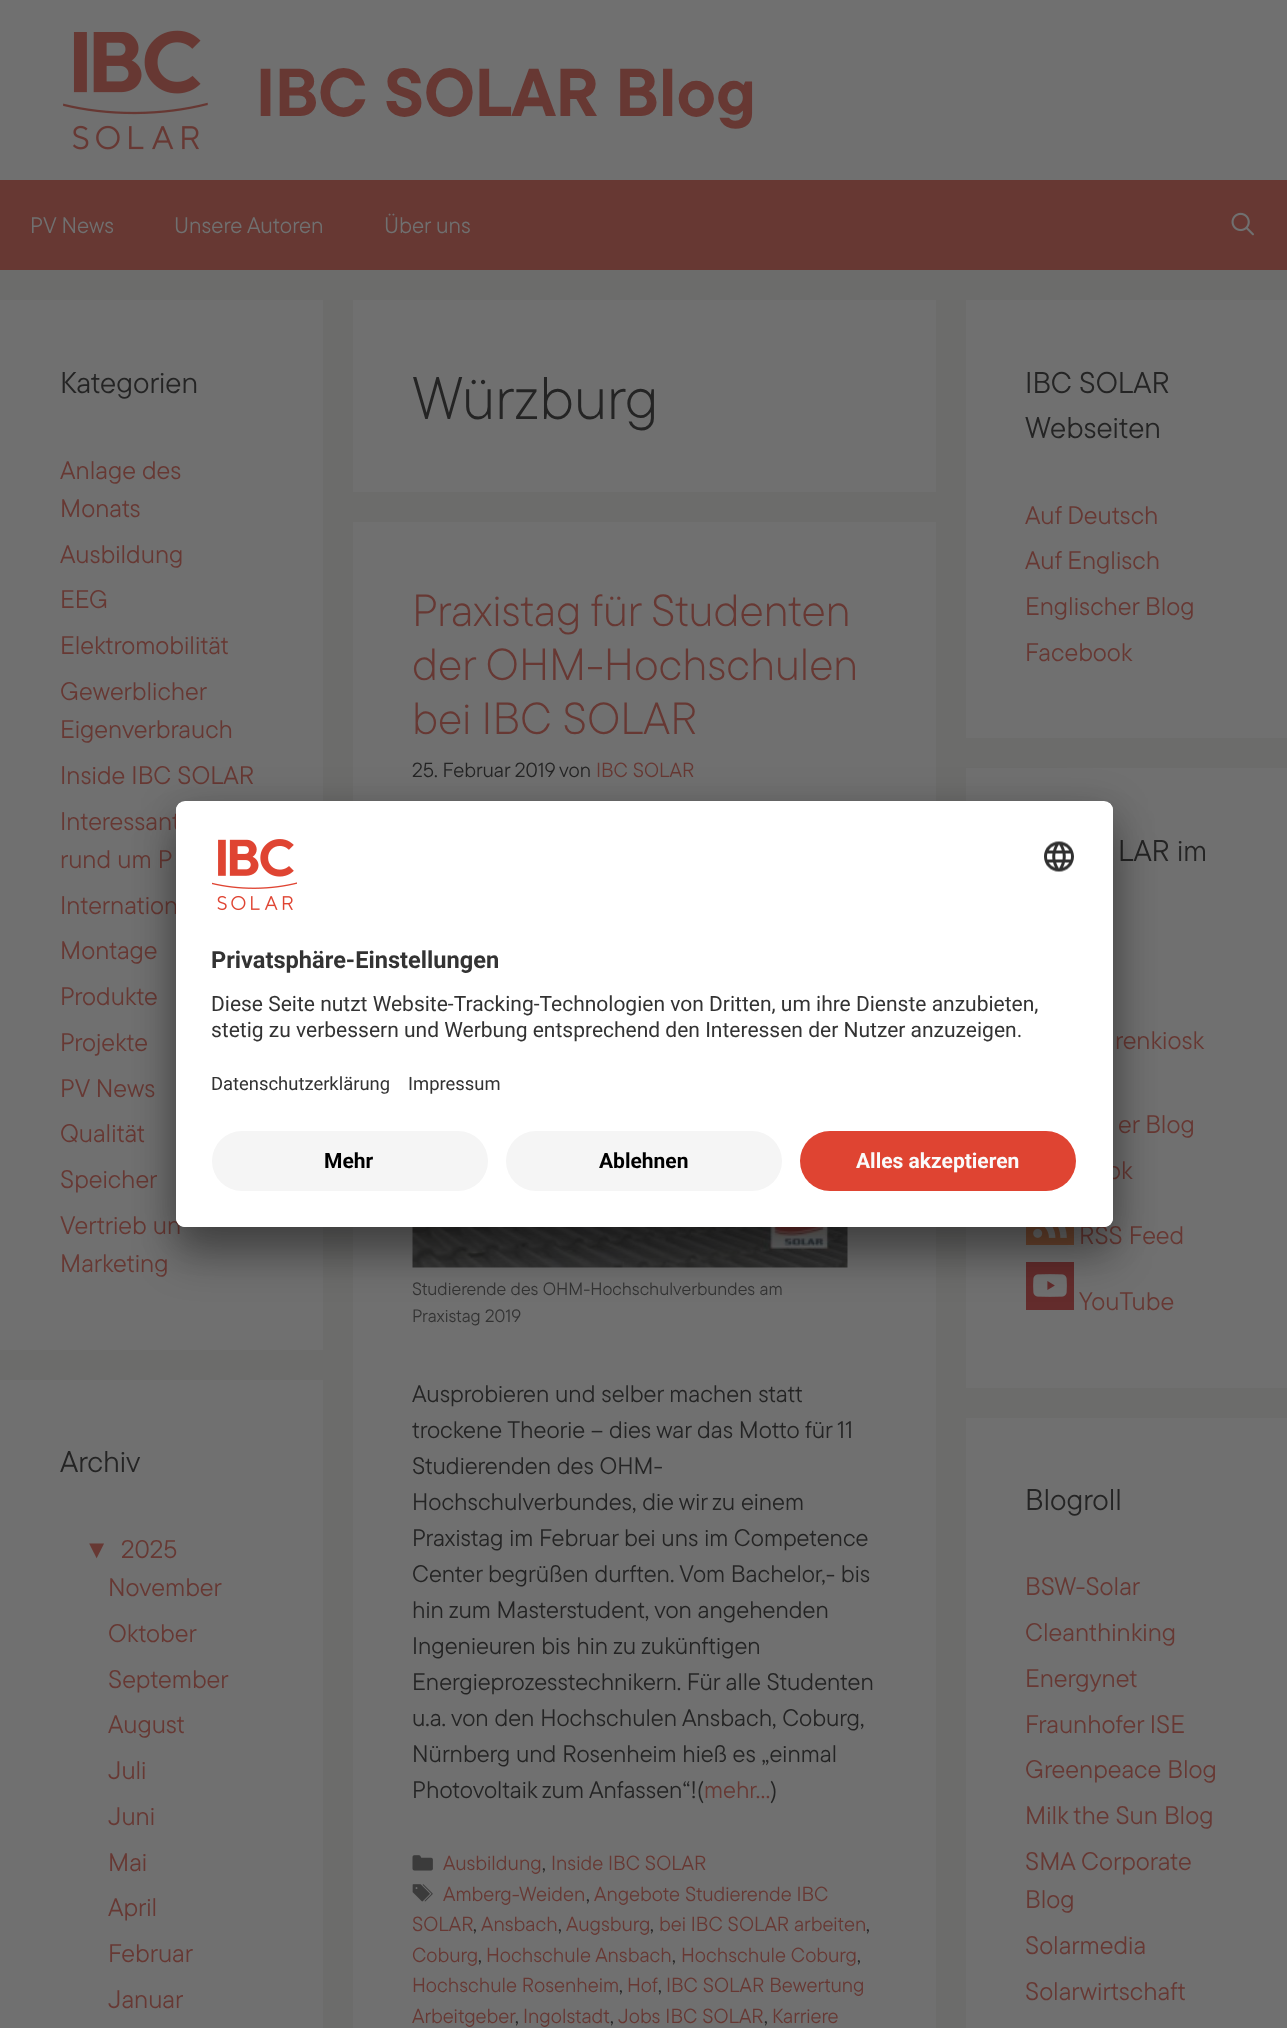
<svg xmlns="http://www.w3.org/2000/svg" width="1287" height="2028" viewBox="0 0 1287 2028">
  <defs>
    <clipPath id="clip1"><rect x="176" y="801" width="937" height="426" rx="9"/></clipPath>
    <clipPath id="clip2"><path d="M185 801H1104C1109 801 1113 805 1113 810V1119H176V810C176 805 180 801 185 801Z"/></clipPath>
  </defs>
  <rect width="100%" height="100%" fill="rgb(108,108,107)"/>
  <rect x="0" y="0" width="1287" height="180" fill="rgb(112,112,112)"/>
  <image x="63" y="30" width="145" height="120" href="pic1.png"/>
  <text x="256" y="116" font-family="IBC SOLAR" font-size="67.5" font-weight="bold" fill="rgb(103,56,51)">IBC SOLAR Blog</text>
  <rect x="0" y="180" width="1287" height="90" fill="rgb(103,56,51)"/>
  <g font-family="IBC SOLAR" font-size="22.5" fill="rgb(112,112,112)">
    <text x="30" y="233">PV News</text>
    <text x="174" y="233">Unsere Autoren</text>
    <text x="384" y="233">Über uns</text>
  </g>
  <image x="1231" y="212" width="23" height="24" href="pic2.png"/>
  <rect x="0" y="300" width="323" height="1050" fill="rgb(112,112,112)"/>
  <text x="60" y="393" font-family="IBC SOLAR" font-size="30" fill="rgb(36,36,36)">Kategorien</text>
  <g font-family="IBC SOLAR" font-size="25.5" fill="rgb(103,56,51)">
    <text>
      <tspan x="60" y="479">Anlage des</tspan>
      <tspan x="60" y="517">Monats</tspan>
      <tspan x="60" y="563">Ausbildung</tspan>
      <tspan x="60" y="608">EEG</tspan>
      <tspan x="60" y="654">Elektromobilität</tspan>
      <tspan x="60" y="700">Gewerblicher</tspan>
      <tspan x="60" y="738">Eigenverbrauch</tspan>
      <tspan x="60" y="784">Inside IBC SOLAR</tspan>
      <tspan x="60" y="830">Interessant</tspan>
      <tspan x="60" y="868">rund um P</tspan>
      <tspan x="60" y="914">Internation</tspan>
      <tspan x="60" y="959">Montage</tspan>
      <tspan x="60" y="1005">Produkte</tspan>
      <tspan x="60" y="1051">Projekte</tspan>
      <tspan x="60" y="1097">PV News</tspan>
      <tspan x="60" y="1142">Qualität</tspan>
      <tspan x="60" y="1188">Speicher</tspan>
      <tspan x="60" y="1234">Vertrieb un</tspan>
      <tspan x="60" y="1272">Marketing</tspan>
    </text>
  </g>
  <rect x="0" y="1380" width="323" height="648" fill="rgb(112,112,112)"/>
  <text x="60" y="1472" font-family="IBC SOLAR" font-size="30" fill="rgb(36,36,36)">Archiv</text>
  <text x="84" y="1558" font-family="Liberation Sans" font-size="25.5" fill="rgb(103,56,51)">▼</text>
  <g font-family="IBC SOLAR" font-size="25.5" fill="rgb(103,56,51)">
    <text x="121" y="1558">2025</text>
    <text>
      <tspan x="108" y="1596">November</tspan>
      <tspan x="108" y="1642">Oktober</tspan>
      <tspan x="108" y="1688">September</tspan>
      <tspan x="108" y="1733">August</tspan>
      <tspan x="108" y="1779">Juli</tspan>
      <tspan x="108" y="1825">Juni</tspan>
      <tspan x="108" y="1871">Mai</tspan>
      <tspan x="108" y="1916">April</tspan>
      <tspan x="108" y="1962">Februar</tspan>
      <tspan x="108" y="2008">Januar</tspan>
    </text>
  </g>
  <rect x="353" y="300" width="583" height="192" fill="rgb(112,112,112)"/>
  <text x="412" y="419" font-family="IBC SOLAR" font-size="60" font-weight="300" fill="rgb(36,36,36)">Würzburg</text>
  <rect x="353" y="522" width="583" height="1506" fill="rgb(112,112,112)"/>
  <g font-family="IBC SOLAR" font-size="45" font-weight="300" fill="rgb(103,56,51)">
    <text>
      <tspan x="412" y="626">Praxistag für Studenten</tspan>
      <tspan x="412" y="680">der OHM-Hochschulen</tspan>
      <tspan x="412" y="734">bei IBC SOLAR</tspan>
    </text>
  </g>
  <g font-family="IBC SOLAR" font-size="20.4" fill="rgb(36,36,36)">
    <text x="412" y="777">25. Februar 2019</text>
    <text x="559" y="777">von</text>
  </g>
  <text x="596" y="777" font-family="IBC SOLAR" font-size="20.4" fill="rgb(103,56,51)">IBC SOLAR</text>
  <image x="412" y="1227" width="436" height="41" href="pic3.png"/>
  <g font-family="IBC SOLAR" font-size="18" fill="rgb(51,51,51)">
    <text>
      <tspan x="412" y="1295">Studierende des OHM-Hochschulverbundes am</tspan>
      <tspan x="412" y="1322">Praxistag 2019</tspan>
    </text>
  </g>
  <g font-family="IBC SOLAR" font-size="24" fill="rgb(36,36,36)">
    <text>
      <tspan x="412" y="1402">Ausprobieren und selber machen statt</tspan>
      <tspan x="412" y="1438">trockene Theorie – dies war das Motto für 11</tspan>
      <tspan x="412" y="1474">Studierenden des OHM-</tspan>
      <tspan x="412" y="1510">Hochschulverbundes, die wir zu einem</tspan>
      <tspan x="412" y="1546">Praxistag im Februar bei uns im Competence</tspan>
      <tspan x="412" y="1582">Center begrüßen durften. Vom Bachelor,- bis</tspan>
      <tspan x="412" y="1618">hin zum Masterstudent, von angehenden</tspan>
      <tspan x="412" y="1654">Ingenieuren bis hin zu zukünftigen</tspan>
      <tspan x="412" y="1690">Energieprozesstechnikern. Für alle Studenten</tspan>
      <tspan x="412" y="1726">u.a. von den Hochschulen Ansbach, Coburg,</tspan>
      <tspan x="412" y="1762">Nürnberg und Rosenheim hieß es „einmal</tspan>
      <tspan x="412" y="1798">Photovoltaik zum Anfassen“!(</tspan>
    </text>
  </g>
  <text x="704" y="1798" font-family="IBC SOLAR" font-size="24" fill="rgb(103,56,51)">mehr…</text>
  <text x="770" y="1798" font-family="IBC SOLAR" font-size="24" fill="rgb(36,36,36)">)</text>
  <image x="412" y="1855" width="21" height="16" href="pic4.png"/>
  <text x="443" y="1870" font-family="IBC SOLAR" font-size="20.4" fill="rgb(103,56,51)">Ausbildung</text>
  <text x="542" y="1870" font-family="IBC SOLAR" font-size="20.4" fill="rgb(36,36,36)">,</text>
  <text x="551" y="1870" font-family="IBC SOLAR" font-size="20.4" fill="rgb(103,56,51)">Inside IBC SOLAR</text>
  <image x="412" y="1884" width="21" height="18" href="pic5.png"/>
  <text x="443" y="1901" font-family="IBC SOLAR" font-size="20.4" fill="rgb(103,56,51)">Amberg-Weiden</text>
  <text x="586" y="1901" font-family="IBC SOLAR" font-size="20.4" fill="rgb(36,36,36)">,</text>
  <g font-family="IBC SOLAR" font-size="20.4" fill="rgb(103,56,51)">
    <text x="594" y="1901">Angebote Studierende IBC</text>
    <text x="412" y="1931">SOLAR</text>
  </g>
  <text x="473" y="1931" font-family="IBC SOLAR" font-size="20.4" fill="rgb(36,36,36)">,</text>
  <text x="481" y="1931" font-family="IBC SOLAR" font-size="20.4" fill="rgb(103,56,51)">Ansbach</text>
  <text x="558" y="1931" font-family="IBC SOLAR" font-size="20.4" fill="rgb(36,36,36)">,</text>
  <text x="566" y="1931" font-family="IBC SOLAR" font-size="20.4" fill="rgb(103,56,51)">Augsburg</text>
  <text x="650" y="1931" font-family="IBC SOLAR" font-size="20.4" fill="rgb(36,36,36)">,</text>
  <text x="659" y="1931" font-family="IBC SOLAR" font-size="20.4" fill="rgb(103,56,51)">bei IBC SOLAR arbeiten</text>
  <text x="866" y="1931" font-family="IBC SOLAR" font-size="20.4" fill="rgb(36,36,36)">,</text>
  <text x="412" y="1962" font-family="IBC SOLAR" font-size="20.4" fill="rgb(103,56,51)">Coburg</text>
  <text x="478" y="1962" font-family="IBC SOLAR" font-size="20.4" fill="rgb(36,36,36)">,</text>
  <text x="486" y="1962" font-family="IBC SOLAR" font-size="20.4" fill="rgb(103,56,51)">Hochschule Ansbach</text>
  <text x="672" y="1962" font-family="IBC SOLAR" font-size="20.4" fill="rgb(36,36,36)">,</text>
  <text x="681" y="1962" font-family="IBC SOLAR" font-size="20.4" fill="rgb(103,56,51)">Hochschule Coburg</text>
  <text x="857" y="1962" font-family="IBC SOLAR" font-size="20.4" fill="rgb(36,36,36)">,</text>
  <text x="412" y="1992" font-family="IBC SOLAR" font-size="20.4" fill="rgb(103,56,51)">Hochschule Rosenheim</text>
  <text x="619" y="1992" font-family="IBC SOLAR" font-size="20.4" fill="rgb(36,36,36)">,</text>
  <text x="627" y="1992" font-family="IBC SOLAR" font-size="20.4" fill="rgb(103,56,51)">Hof</text>
  <text x="658" y="1992" font-family="IBC SOLAR" font-size="20.4" fill="rgb(36,36,36)">,</text>
  <g font-family="IBC SOLAR" font-size="20.4" fill="rgb(103,56,51)">
    <text x="666" y="1992">IBC SOLAR Bewertung</text>
    <text x="412" y="2023">Arbeitgeber</text>
  </g>
  <text x="515" y="2023" font-family="IBC SOLAR" font-size="20.4" fill="rgb(36,36,36)">,</text>
  <text x="523" y="2023" font-family="IBC SOLAR" font-size="20.4" fill="rgb(103,56,51)">Ingolstadt</text>
  <text x="610" y="2023" font-family="IBC SOLAR" font-size="20.4" fill="rgb(36,36,36)">,</text>
  <text x="618" y="2023" font-family="IBC SOLAR" font-size="20.4" fill="rgb(103,56,51)">Jobs IBC SOLAR</text>
  <text x="764" y="2023" font-family="IBC SOLAR" font-size="20.4" fill="rgb(36,36,36)">,</text>
  <text x="772" y="2023" font-family="IBC SOLAR" font-size="20.4" fill="rgb(103,56,51)">Karriere</text>
  <rect x="966" y="300" width="321" height="438" fill="rgb(112,112,112)"/>
  <g font-family="IBC SOLAR" font-size="30" fill="rgb(36,36,36)">
    <text>
      <tspan x="1025" y="393">IBC SOLAR</tspan>
      <tspan x="1025" y="438">Webseiten</tspan>
    </text>
  </g>
  <g font-family="IBC SOLAR" font-size="25.5" fill="rgb(103,56,51)">
    <text>
      <tspan x="1025" y="524">Auf Deutsch</tspan>
      <tspan x="1025" y="569">Auf Englisch</tspan>
      <tspan x="1025" y="615">Englischer Blog</tspan>
      <tspan x="1025" y="661">Facebook</tspan>
    </text>
  </g>
  <rect x="966" y="768" width="321" height="620" fill="rgb(112,112,112)"/>
  <text x="1118" y="861" font-family="IBC SOLAR" font-size="30" fill="rgb(36,36,36)">LAR im</text>
  <g font-family="IBC SOLAR" font-size="25.5" fill="rgb(103,56,51)">
    <text x="1115" y="1049">renkiosk</text>
    <text x="1118" y="1133">er Blog</text>
    <text x="1107" y="1179">ok</text>
  </g>
  <image x="1026" y="1227" width="48" height="18" href="pic6.png"/>
  <text x="1079" y="1244" font-family="IBC SOLAR" font-size="25.5" fill="rgb(103,56,51)">RSS Feed</text>
  <image x="1026" y="1262" width="48" height="48" href="pic7.png"/>
  <text x="1079" y="1310" font-family="IBC SOLAR" font-size="25.5" fill="rgb(103,56,51)">YouTube</text>
  <rect x="966" y="1418" width="321" height="610" fill="rgb(112,112,112)"/>
  <text x="1025" y="1510" font-family="IBC SOLAR" font-size="30" fill="rgb(36,36,36)">Blogroll</text>
  <g font-family="IBC SOLAR" font-size="25.5" fill="rgb(103,56,51)">
    <text>
      <tspan x="1025" y="1595">BSW-Solar</tspan>
      <tspan x="1025" y="1641">Cleanthinking</tspan>
      <tspan x="1025" y="1687">Energynet</tspan>
      <tspan x="1025" y="1733">Fraunhofer ISE</tspan>
      <tspan x="1025" y="1778">Greenpeace Blog</tspan>
      <tspan x="1025" y="1824">Milk the Sun Blog</tspan>
      <tspan x="1025" y="1870">SMA Corporate</tspan>
      <tspan x="1025" y="1908">Blog</tspan>
      <tspan x="1025" y="1954">Solarmedia</tspan>
      <tspan x="1025" y="2000">Solarwirtschaft</tspan>
    </text>
  </g>
  <rect x="176" y="831" width="937" height="426" rx="9" fill="rgba(0,0,0,0.3)" filter="blur(21px)"/>
  <rect x="176" y="809" width="937" height="426" rx="9" fill="rgba(0,0,0,0.22)" filter="blur(19.5px)"/>
  <rect x="176" y="801" width="937" height="426" rx="9" fill="rgb(255,255,255)"/>
  <g clip-path="url(#clip1)">
    <g clip-path="url(#clip2)">
      <rect x="176" y="803" width="937" height="316" fill="rgb(255,255,255)"/>
    </g>
  </g>
  <image x="212" y="839" width="85" height="72" href="pic8.png"/>
  <image x="1044" y="841" width="30" height="31" href="pic9.png"/>
  <text x="211" y="968" font-family="Roboto" font-size="23.6" font-weight="bold" fill="rgb(51,51,51)">Privatsphäre-Einstellungen</text>
  <g font-family="Roboto" font-size="21" fill="rgb(51,51,51)">
    <text>
      <tspan x="211" y="1011">Diese Seite nutzt Website-Tracking-Technologien von Dritten, um ihre Dienste anzubieten,</tspan>
      <tspan x="211" y="1037">stetig zu verbessern und Werbung entsprechend den Interessen der Nutzer anzuzeigen.</tspan>
    </text>
  </g>
  <g font-family="Roboto" font-size="18.4" fill="rgb(51,51,51)">
    <text x="211" y="1090">Datenschutzerklärung</text>
    <text x="408" y="1090">Impressum</text>
  </g>
  <path d="M176 1119H1113V1218C1113 1223 1109 1227 1104 1227H185C180 1227 176 1223 176 1218Z" fill="rgb(255,255,255)"/>
  <rect x="212" y="1131" width="276" height="60" rx="30" fill="rgb(245,245,245)"/>
  <text x="324" y="1168" font-family="Roboto" font-size="21" font-weight="bold" fill="rgb(0,0,0)">Mehr</text>
  <rect x="506" y="1131" width="276" height="60" rx="30" fill="rgb(245,245,245)"/>
  <text x="599" y="1168" font-family="Roboto" font-size="21" font-weight="bold" fill="rgb(0,0,0)">Ablehnen</text>
  <rect x="800" y="1131" width="276" height="60" rx="30" fill="rgb(223,68,50)"/>
  <text x="856" y="1168" font-family="Roboto" font-size="21" font-weight="bold" fill="rgb(250,250,250)">Alles akzeptieren</text>
</svg>
